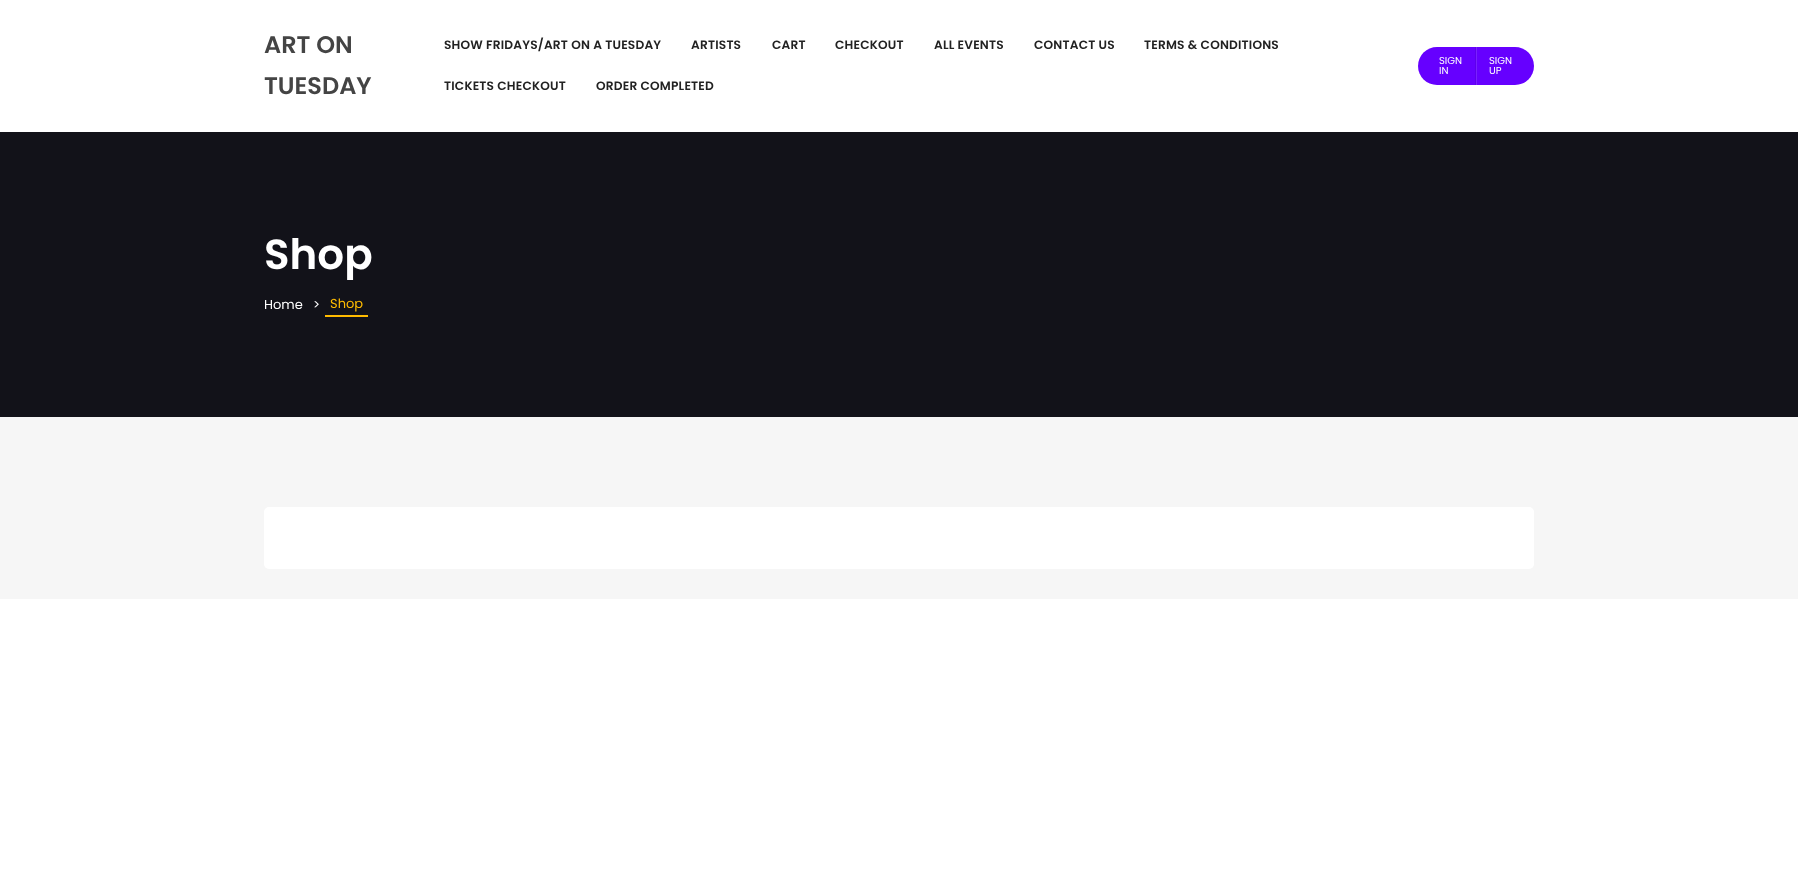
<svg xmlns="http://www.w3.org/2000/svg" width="1798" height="890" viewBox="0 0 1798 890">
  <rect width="100%" height="100%" fill="rgb(255,255,255)"/>
  <rect x="0" y="417" width="1798" height="182" fill="rgb(246,246,246)"/>
  <g font-family="Poppins" font-size="24" font-weight="600" fill="rgb(68,68,68)">
    <text>
      <tspan x="264" y="53">ART ON</tspan>
      <tspan x="264" y="94">TUESDAY</tspan>
    </text>
  </g>
  <g font-family="Poppins" font-size="12.2" font-weight="600" letter-spacing="0.2" fill="rgb(34,34,34)">
    <text x="444" y="49">SHOW FRIDAYS/ART ON A TUESDAY</text>
    <text x="691" y="49">ARTISTS</text>
    <text x="772" y="49">CART</text>
    <text x="835" y="49">CHECKOUT</text>
    <text x="934" y="49">ALL EVENTS</text>
    <text x="1034" y="49">CONTACT US</text>
    <text x="1144" y="49">TERMS &amp; CONDITIONS</text>
    <text x="444" y="90">TICKETS CHECKOUT</text>
    <text x="596" y="90">ORDER COMPLETED</text>
  </g>
  <rect x="1418" y="47" width="116" height="38" rx="19" fill="rgb(102,0,255)"/>
  <rect x="1475" y="47" width="1" height="38" fill="rgb(94,0,235)"/>
  <g font-family="Poppins" font-size="10" fill="rgb(255,255,255)">
    <text>
      <tspan x="1439" y="64">SIGN</tspan>
      <tspan x="1439" y="74">IN</tspan>
    </text>
  </g>
  <rect x="1476" y="47" width="1" height="38" fill="rgb(122,33,255)"/>
  <g font-family="Poppins" font-size="10" fill="rgb(255,255,255)">
    <text>
      <tspan x="1489" y="64">SIGN</tspan>
      <tspan x="1489" y="74">UP</tspan>
    </text>
  </g>
  <rect x="0" y="132" width="1798" height="285" fill="rgb(18,18,25)"/>
  <text x="264" y="269" font-family="Poppins" font-size="42" font-weight="600" fill="rgb(255,255,255)">Shop</text>
  <g font-family="Poppins" font-size="13" fill="rgb(255,255,255)">
    <text x="264" y="309">Home</text>
    <text x="313" y="309">&gt;</text>
  </g>
  <rect x="325" y="315" width="43" height="2" fill="rgb(255,187,0)"/>
  <text x="330" y="308" font-family="Poppins" font-size="13" fill="rgb(255,187,0)">Shop</text>
  <rect x="264" y="507" width="1270" height="62" rx="5" fill="rgb(255,255,255)"/>
</svg>
